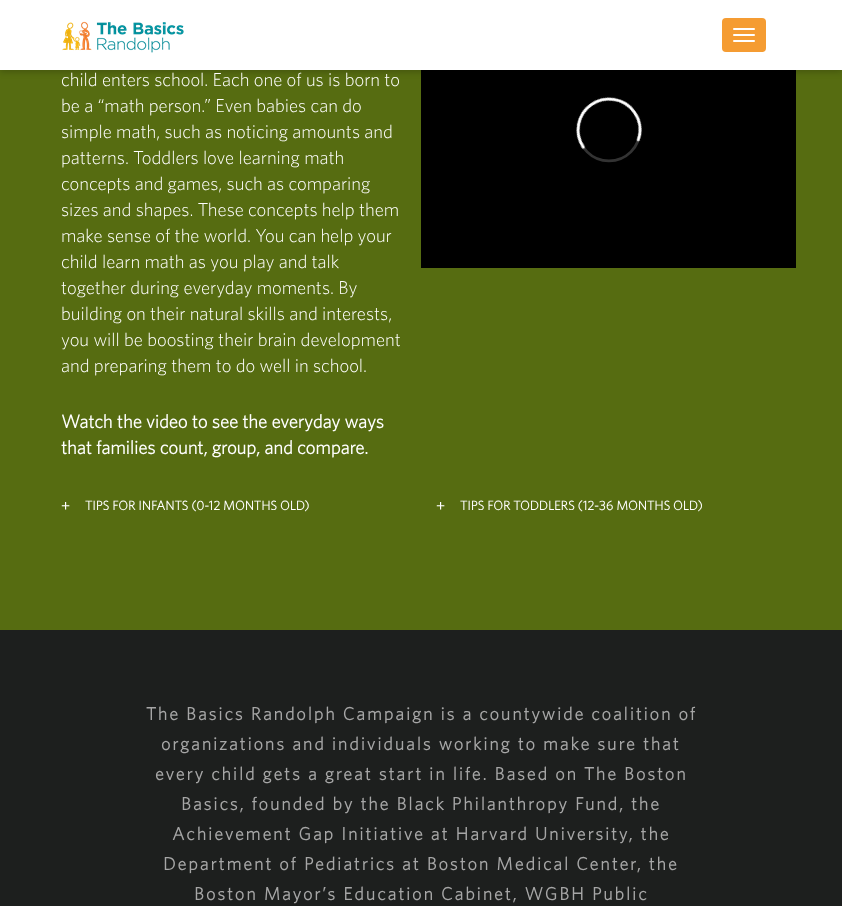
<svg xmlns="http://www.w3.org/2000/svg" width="842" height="906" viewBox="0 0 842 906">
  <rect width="100%" height="100%" fill="rgb(29,31,30)"/>
  <rect x="0" y="70" width="842" height="560" fill="rgb(86,108,17)"/>
  <image x="421" y="70" width="375" height="198" href="pic2.png"/>
  <rect x="0" y="2" width="842" height="70" fill="rgba(0,0,0,0.2)" filter="blur(3px)"/>
  <rect x="0" y="0" width="842" height="70" fill="rgb(255,255,255)"/>
  <image x="62" y="21" width="122" height="32" href="pic1.png"/>
  <rect x="722" y="18" width="44" height="34" rx="4" fill="rgb(245,156,50)"/>
  <rect x="733" y="28" width="22" height="2" rx="1" fill="rgb(255,255,255)"/>
  <rect x="733" y="34" width="22" height="2" rx="1" fill="rgb(255,255,255)"/>
  <rect x="733" y="40" width="22" height="2" rx="1" fill="rgb(255,255,255)"/>
  <g font-family="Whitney" font-size="18.7" font-weight="300" fill="rgb(255,255,255)">
    <text>
      <tspan x="61" y="86">child enters school. Each one of us is born to</tspan>
      <tspan x="61" y="112">be a “math person.” Even babies can do</tspan>
      <tspan x="61" y="138">simple math, such as noticing amounts and</tspan>
      <tspan x="61" y="164">patterns. Toddlers love learning math</tspan>
      <tspan x="61" y="190">concepts and games, such as comparing</tspan>
      <tspan x="61" y="216">sizes and shapes. These concepts help them</tspan>
      <tspan x="61" y="242">make sense of the world. You can help your</tspan>
      <tspan x="61" y="268">child learn math as you play and talk</tspan>
      <tspan x="61" y="294">together during everyday moments. By</tspan>
      <tspan x="61" y="320">building on their natural skills and interests,</tspan>
      <tspan x="61" y="346">you will be boosting their brain development</tspan>
      <tspan x="61" y="372">and preparing them to do well in school.</tspan>
    </text>
  </g>
  <g font-family="Whitney" font-size="18.7" font-weight="bold" fill="rgb(255,255,255)">
    <text>
      <tspan x="61" y="428">Watch the video to see the everyday ways</tspan>
      <tspan x="61" y="454">that families count, group, and compare.</tspan>
    </text>
  </g>
  <text x="61" y="511" font-family="Liberation Serif" font-size="16" font-weight="bold" fill="rgb(255,255,255)">+</text>
  <text x="85" y="510" font-family="Whitney" font-size="13" font-weight="bold" fill="rgb(255,255,255)">TIPS FOR INFANTS (0-12 MONTHS OLD)</text>
  <text x="436" y="511" font-family="Liberation Serif" font-size="16" font-weight="bold" fill="rgb(255,255,255)">+</text>
  <text x="460" y="510" font-family="Whitney" font-size="13" font-weight="bold" fill="rgb(255,255,255)">TIPS FOR TODDLERS (12-36 MONTHS OLD)</text>
  <g font-family="Whitney" font-size="18" font-weight="bold" letter-spacing="2" fill="rgb(166,166,166)">
    <text x="146" y="720">The Basics Randolph Campaign is a countywide coalition of</text>
    <text x="161" y="750">organizations and individuals working to make sure that</text>
    <text x="155" y="780">every child gets a great start in life. Based on The Boston</text>
    <text x="181" y="810">Basics, founded by the Black Philanthropy Fund, the</text>
    <text x="172" y="840">Achievement Gap Initiative at Harvard University, the</text>
    <text x="163" y="870">Department of Pediatrics at Boston Medical Center, the</text>
    <text x="194" y="900">Boston Mayor’s Education Cabinet, WGBH Public</text>
  </g>
</svg>
